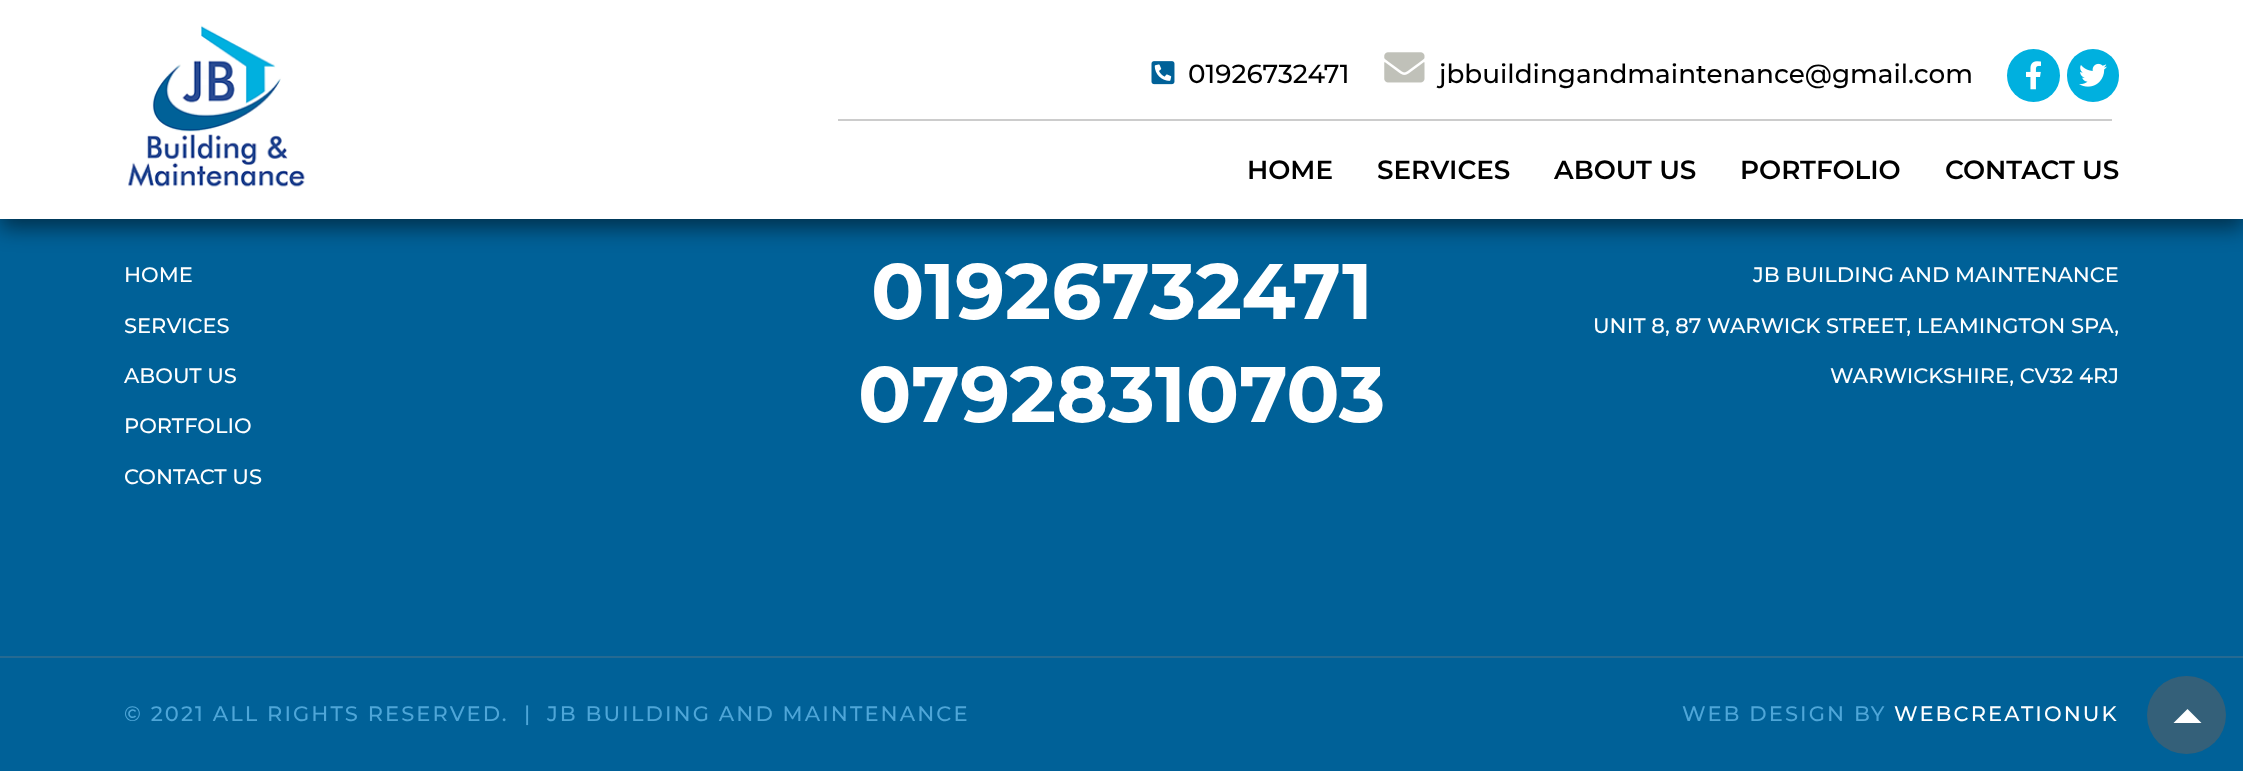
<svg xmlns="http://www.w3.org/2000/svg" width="2243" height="771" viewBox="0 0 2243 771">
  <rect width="100%" height="100%" fill="rgb(0,97,152)"/>
  <rect x="0" y="9" width="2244" height="219" fill="rgba(0,0,0,0.5)" filter="blur(10.5px)"/>
  <rect x="0" y="0" width="2243" height="219" fill="rgb(255,255,255)"/>
  <image x="128" y="25" width="177" height="162" href="pic1.png"/>
  <image x="1151" y="61" width="24" height="24" href="pic2.png"/>
  <text x="1188" y="83" font-family="Montserrat" font-size="26.25" font-weight="500" fill="rgb(0,0,0)">01926732471</text>
  <image x="1384" y="52" width="41" height="31" href="pic3.png"/>
  <text x="1439" y="83" font-family="Montserrat" font-size="26.25" font-weight="500" fill="rgb(0,0,0)">jbbuildingandmaintenance@gmail.com</text>
  <circle cx="2033.5" cy="75.5" r="26.5" fill="rgb(0,176,223)"/>
  <image x="2026" y="61" width="15" height="29" href="pic4.png"/>
  <rect x="2067" y="49" width="52" height="53" rx="26" fill="rgb(0,176,223)"/>
  <image x="2079" y="63" width="28" height="24" href="pic5.png"/>
  <rect x="838" y="119" width="1274" height="2" fill="rgb(204,204,204)"/>
  <g font-family="Montserrat" font-size="26.25" font-weight="600" fill="rgb(0,0,0)">
    <text x="1247" y="179">HOME</text>
    <text x="1377" y="179">SERVICES</text>
    <text x="1554" y="179">ABOUT US</text>
    <text x="1740" y="179">PORTFOLIO</text>
    <text x="1945" y="179">CONTACT US</text>
  </g>
  <g font-family="Montserrat" font-size="21" font-weight="500" fill="rgb(255,255,255)">
    <text x="124" y="282">HOME</text>
    <text x="124" y="333">SERVICES</text>
    <text x="124" y="383">ABOUT US</text>
    <text x="124" y="433">PORTFOLIO</text>
    <text x="124" y="484">CONTACT US</text>
  </g>
  <g font-family="Montserrat" font-size="78.75" font-weight="bold" fill="rgb(255,255,255)">
    <text x="871" y="319">01926732471</text>
    <text x="858" y="422">07928310703</text>
  </g>
  <g font-family="Montserrat" font-size="21" font-weight="500" fill="rgb(255,255,255)">
    <text x="1753" y="282">JB BUILDING AND MAINTENANCE</text>
    <text x="1593" y="333">UNIT 8, 87 WARWICK STREET, LEAMINGTON SPA,</text>
    <text x="1830" y="383">WARWICKSHIRE, CV32 4RJ</text>
  </g>
  <rect x="0" y="656" width="2243" height="2" fill="rgb(37,106,146)"/>
  <g font-family="Montserrat" font-size="21" font-weight="500" letter-spacing="2.1" fill="rgb(78,166,216)">
    <text x="124" y="721">© 2021 ALL RIGHTS RESERVED.</text>
    <text x="524" y="721">|</text>
    <text x="547" y="721">JB BUILDING AND MAINTENANCE</text>
    <text x="1682" y="721">WEB DESIGN BY</text>
  </g>
  <text x="1894" y="721" font-family="Montserrat" font-size="21" font-weight="500" letter-spacing="2.1" fill="rgb(255,255,255)">WEBCREATIONUK</text>
  <rect x="2147" y="676" width="79" height="78" rx="39" fill="rgb(52,96,121)"/>
  <path d="M2201.5 723H2173.5L2187.5 709Z" fill="rgb(255,255,255)"/>
</svg>
